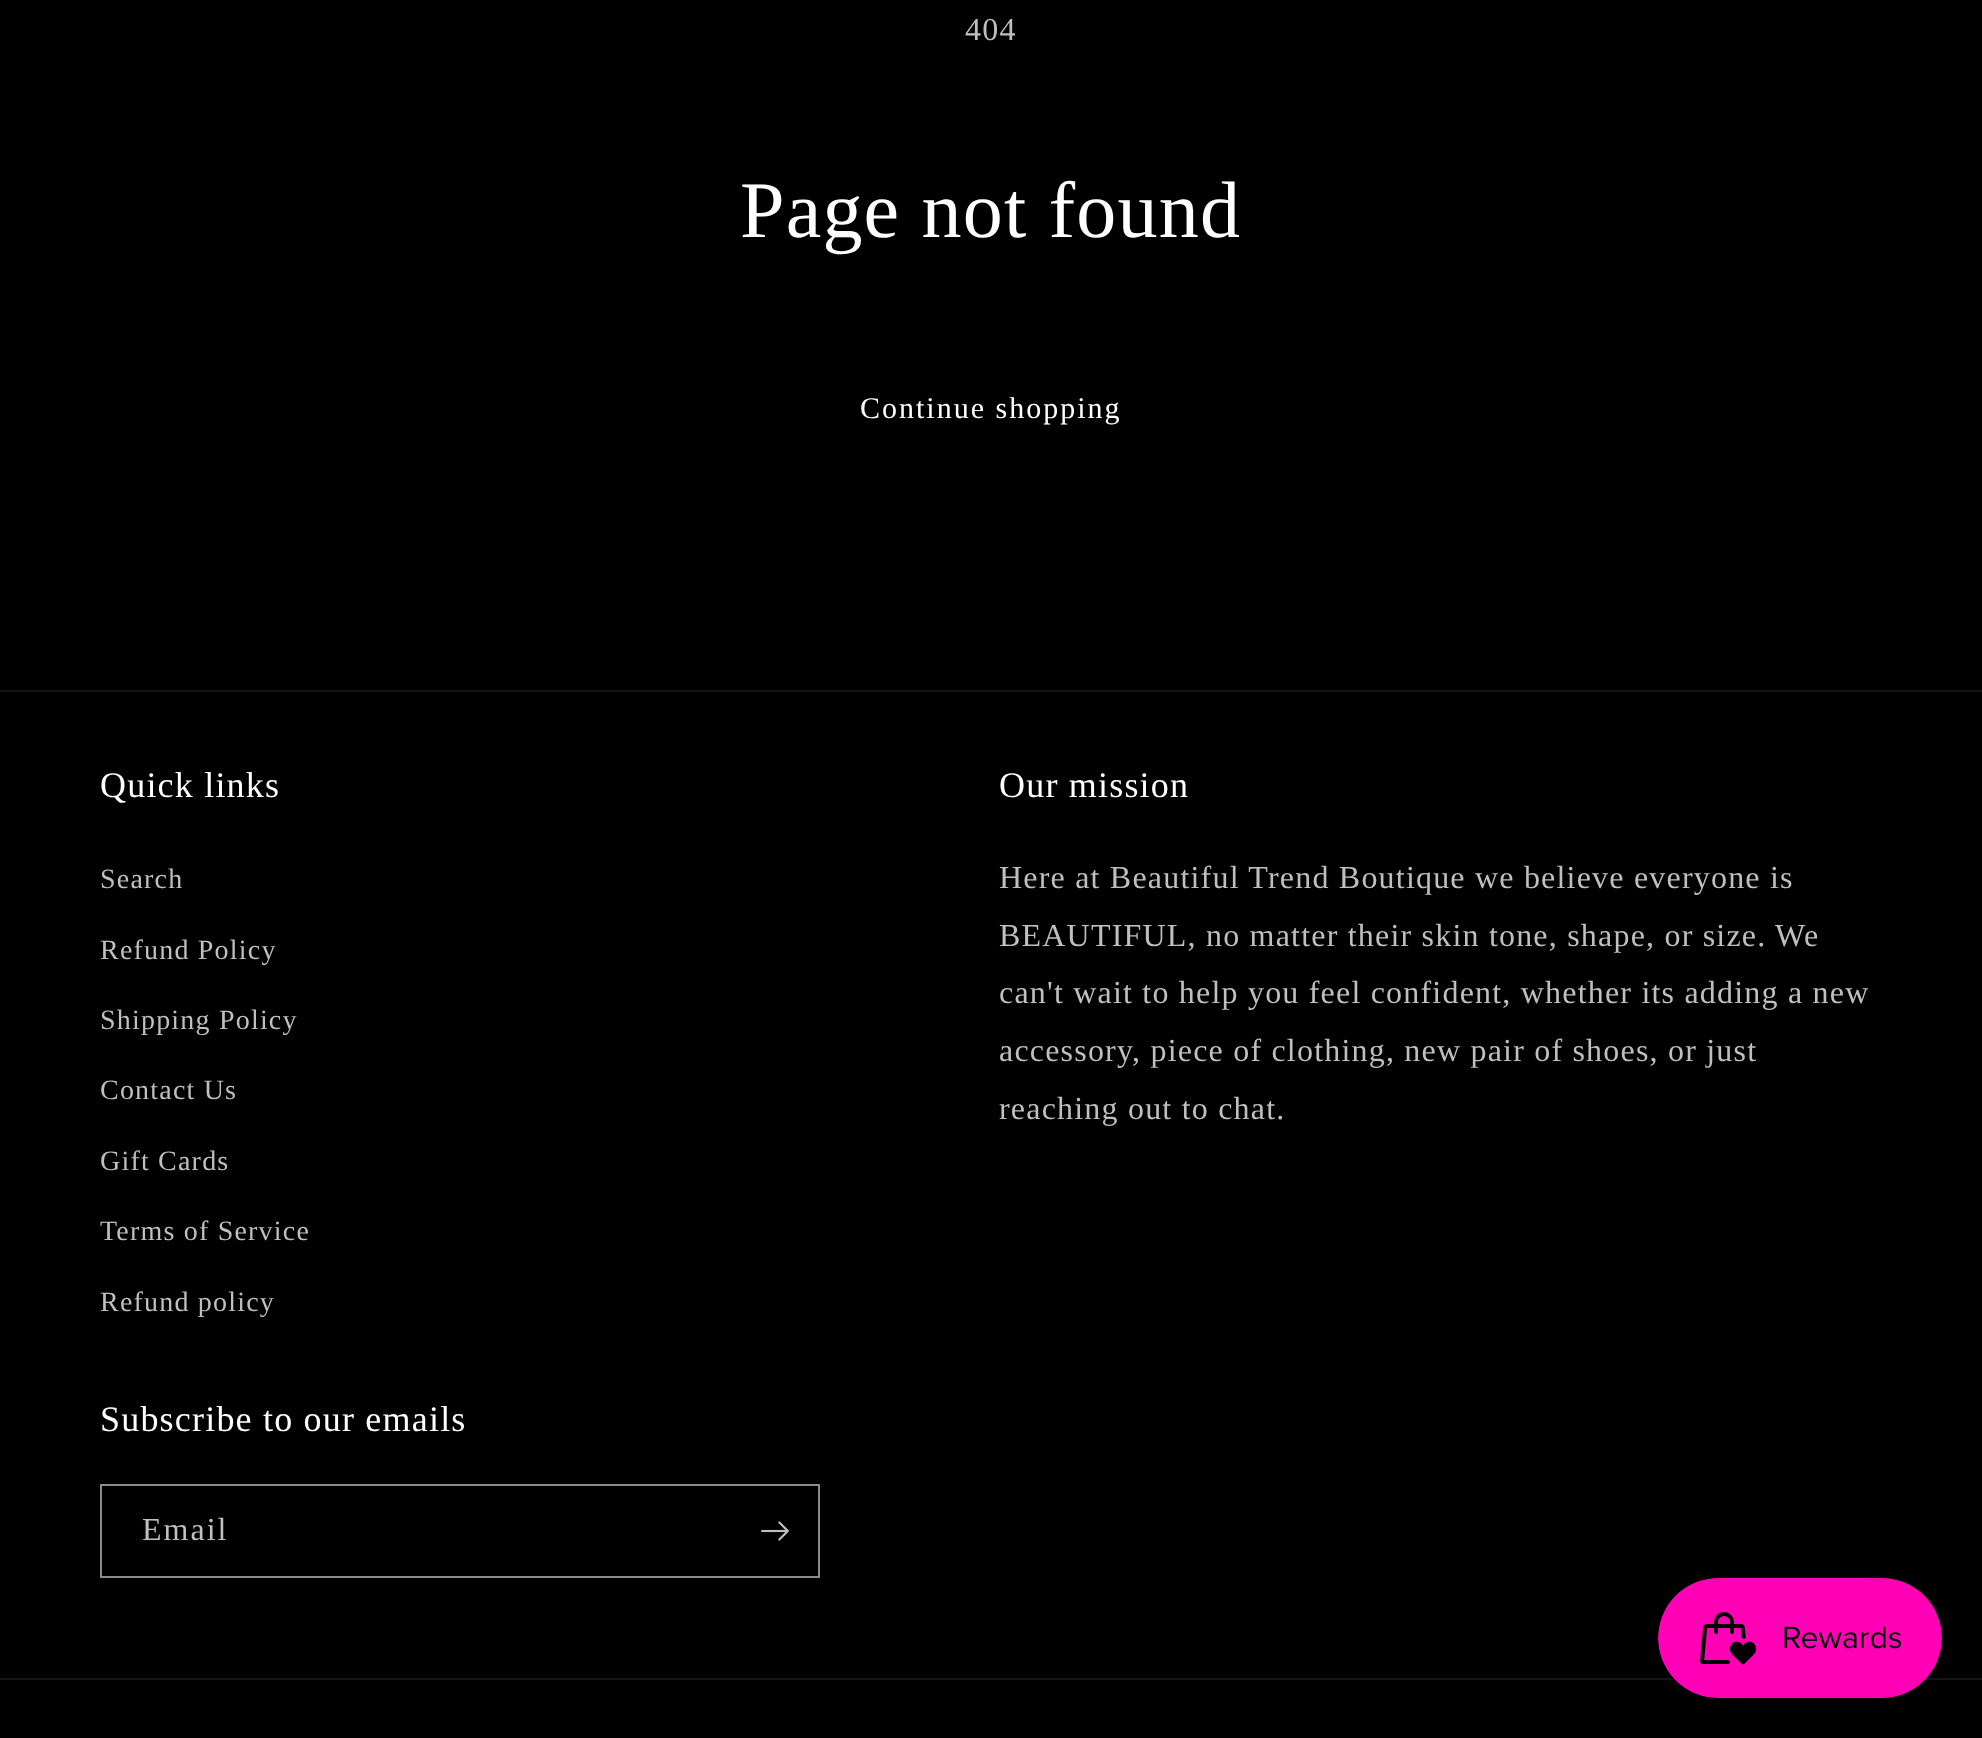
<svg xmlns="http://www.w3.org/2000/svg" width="1982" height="1738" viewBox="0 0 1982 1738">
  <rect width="100%" height="100%" fill="rgb(0,0,0)"/>
  <text x="965" y="40" font-family="Liberation Serif" font-size="32" letter-spacing="1.2" fill="rgb(191,191,191)">404</text>
  <text x="740" y="237" font-family="Liberation Serif" font-size="80" letter-spacing="1.2" fill="rgb(255,255,255)">Page not found</text>
  <text x="860" y="418" font-family="Liberation Serif" font-size="30" letter-spacing="2" fill="rgb(255,255,255)">Continue shopping</text>
  <rect x="0" y="690" width="1982" height="2" fill="rgb(20,20,20)"/>
  <text x="100" y="797" font-family="Liberation Serif" font-size="36" letter-spacing="1.2" fill="rgb(255,255,255)">Quick links</text>
  <g font-family="Liberation Serif" font-size="28" letter-spacing="1.2" fill="rgb(191,191,191)">
    <text x="100" y="888">Search</text>
    <text x="100" y="959">Refund Policy</text>
    <text x="100" y="1029">Shipping Policy</text>
    <text x="100" y="1099">Contact Us</text>
    <text x="100" y="1170">Gift Cards</text>
    <text x="100" y="1240">Terms of Service</text>
    <text x="100" y="1311">Refund policy</text>
  </g>
  <text x="999" y="797" font-family="Liberation Serif" font-size="36" letter-spacing="1.2" fill="rgb(255,255,255)">Our mission</text>
  <g font-family="Liberation Serif" font-size="32" letter-spacing="1.2" fill="rgb(191,191,191)">
    <text>
      <tspan x="999" y="888">Here at Beautiful Trend Boutique we believe everyone is</tspan>
      <tspan x="999" y="946">BEAUTIFUL, no matter their skin tone, shape, or size. We</tspan>
      <tspan x="999" y="1003">can't wait to help you feel confident, whether its adding a new</tspan>
      <tspan x="999" y="1061">accessory, piece of clothing, new pair of shoes, or just</tspan>
      <tspan x="999" y="1119">reaching out to chat.</tspan>
    </text>
  </g>
  <text x="100" y="1431" font-family="Liberation Serif" font-size="36" letter-spacing="1.2" fill="rgb(255,255,255)">Subscribe to our emails</text>
  <rect x="101" y="1485" width="718" height="92" fill="none" stroke="rgb(140,140,140)" stroke-width="2"/>
  <text x="142" y="1540" font-family="Liberation Serif" font-size="32" letter-spacing="2" fill="rgb(191,191,191)">Email</text>
  <image x="761" y="1521" width="28" height="20" href="pic1.png"/>
  <rect x="0" y="1678" width="1982" height="2" fill="rgb(20,20,20)"/>
  <circle cx="1878" cy="1636" r="60" fill="rgb(10,9,9)"/>
  <image x="1658" y="1578" width="284" height="120" href="pic2.png"/>
</svg>
